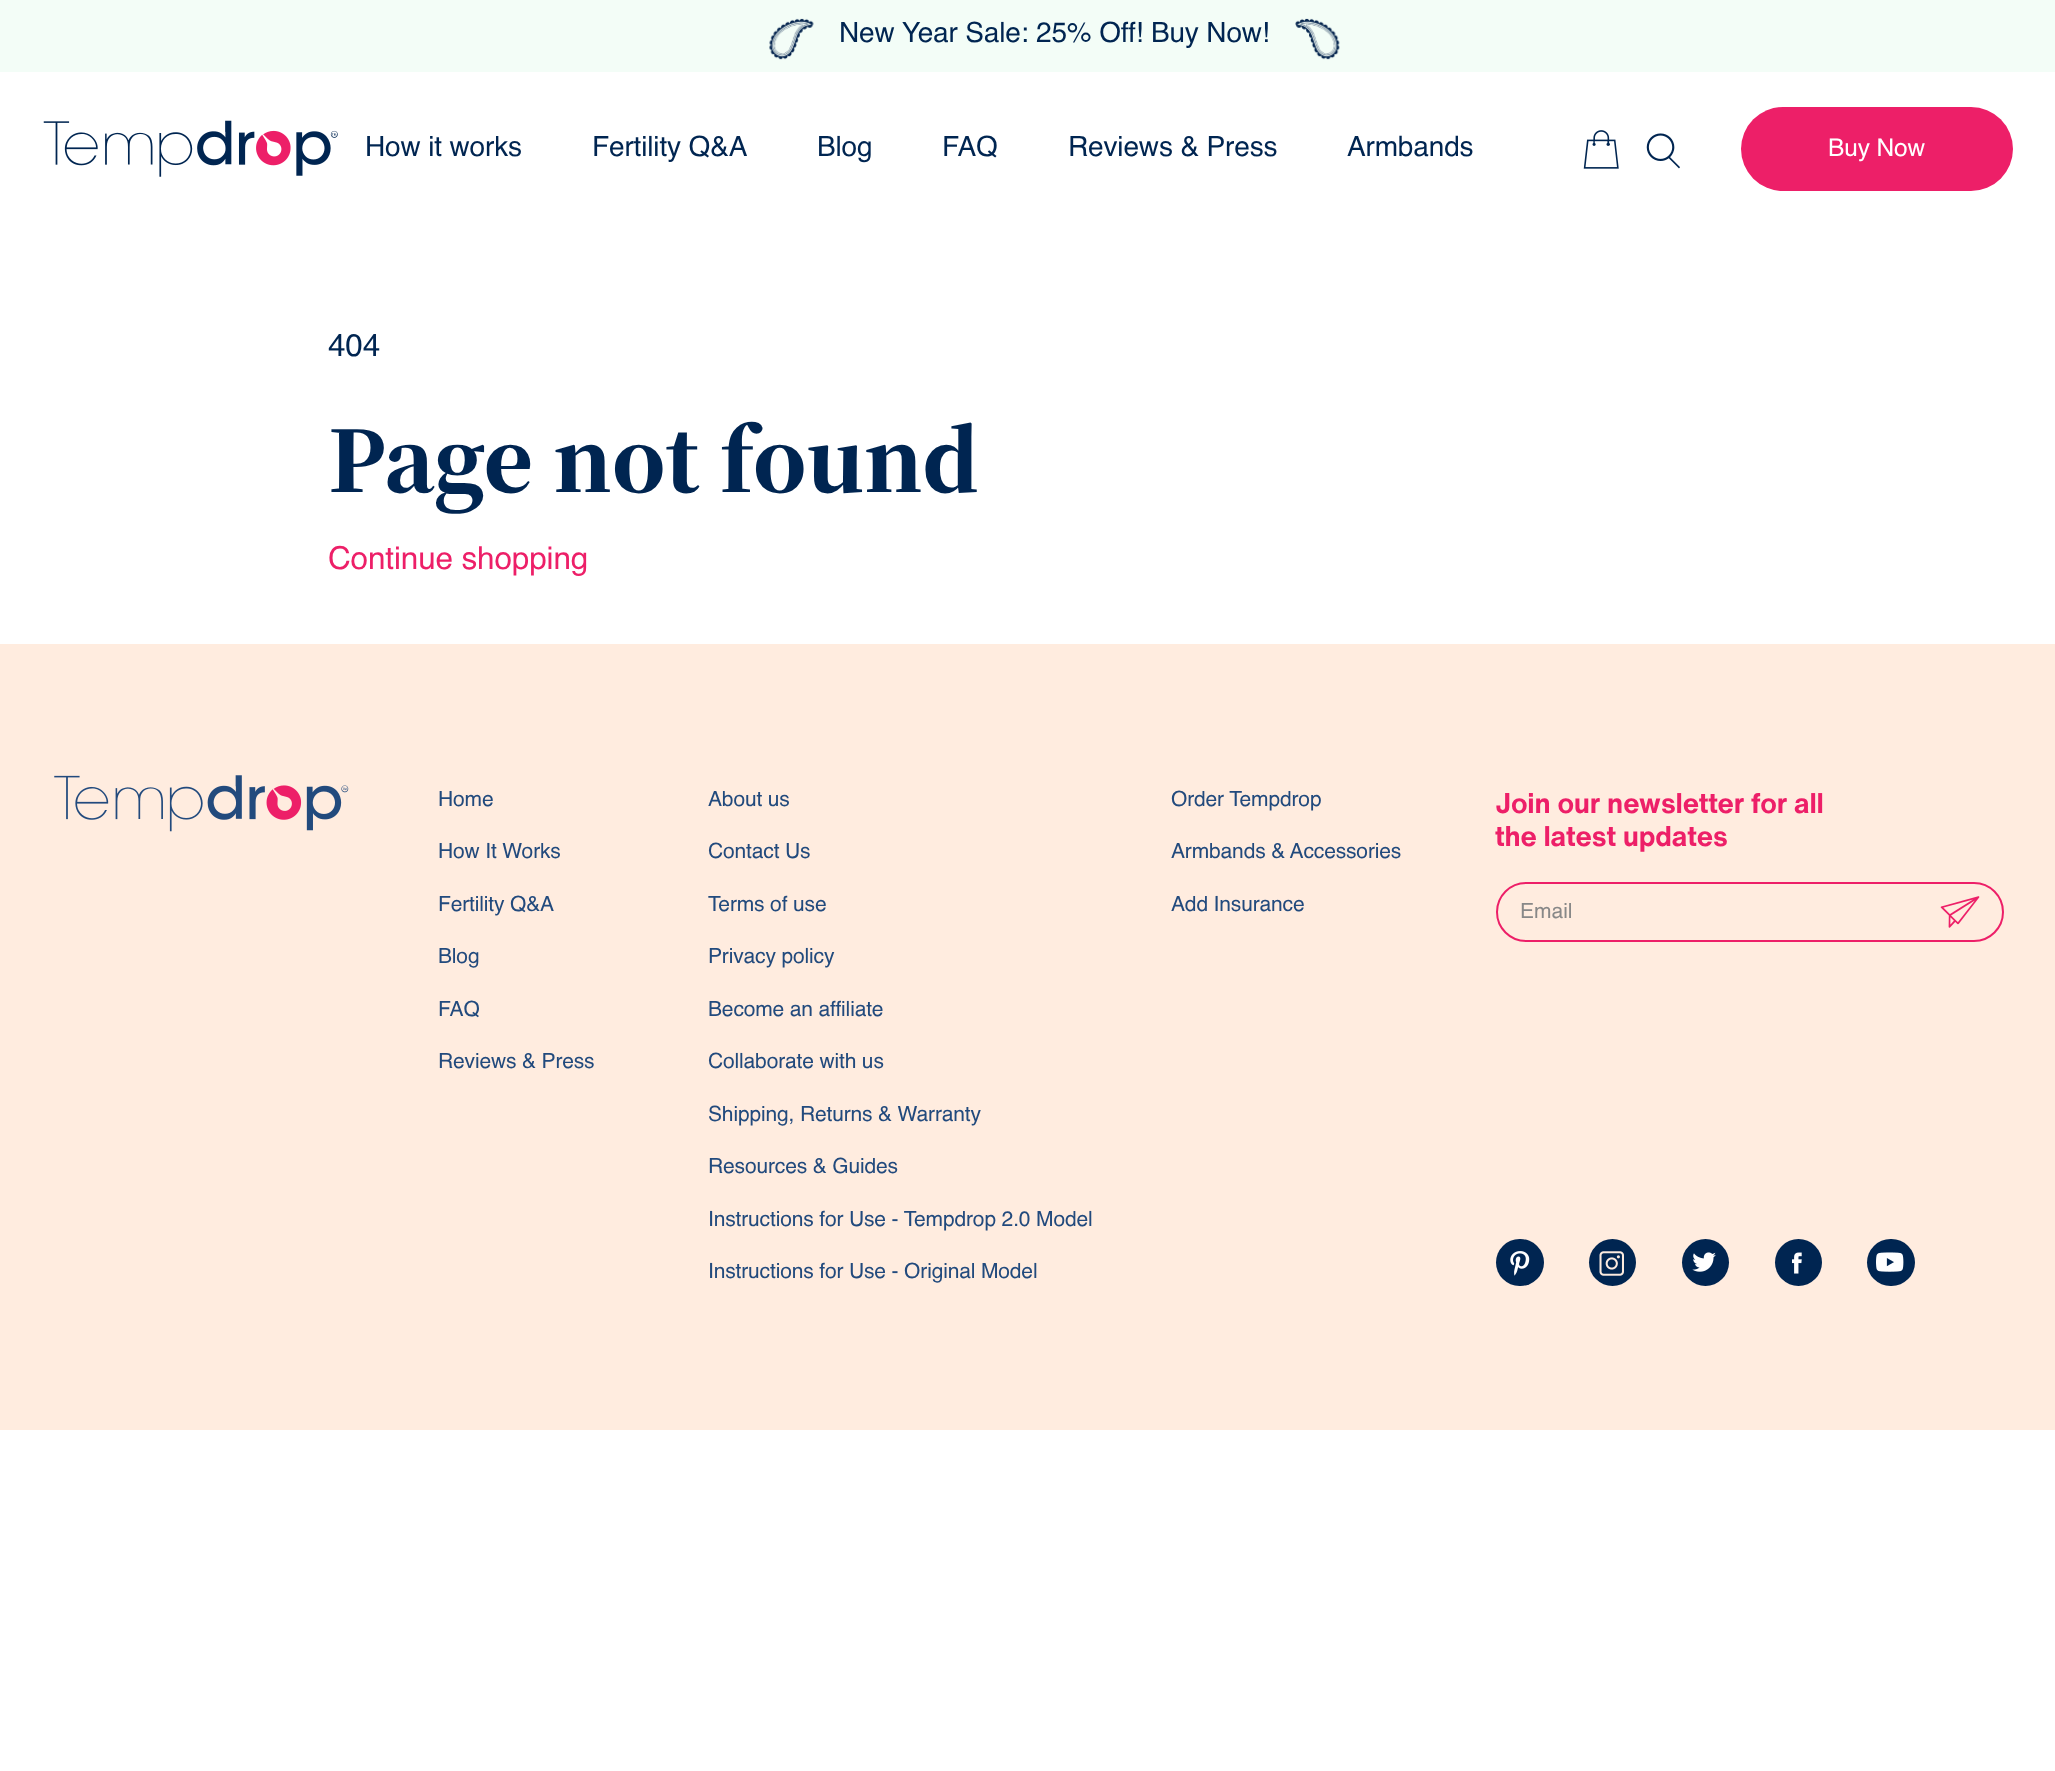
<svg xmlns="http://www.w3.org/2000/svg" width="2055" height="1771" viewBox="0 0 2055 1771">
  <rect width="100%" height="100%" fill="rgb(255,255,255)"/>
  <rect x="0" y="0" width="2055" height="72" fill="rgb(243,253,247)"/>
  <image x="769" y="18" width="45" height="42" href="pic1.png"/>
  <text x="839" y="42" font-family="Helvetica" font-size="28" letter-spacing="-0.15" fill="rgb(0,37,81)">New Year Sale: 25% Off! Buy Now!</text>
  <image x="1295" y="18" width="45" height="42" href="pic2.png"/>
  <image x="43" y="120" width="295" height="57" href="pic3.png"/>
  <image x="256" y="130" width="35" height="36" href="pic4.png"/>
  <g font-family="Helvetica" font-size="28" letter-spacing="-0.15" fill="rgb(0,37,81)">
    <text x="365" y="156">How it works</text>
    <text x="592" y="156">Fertility Q&amp;A</text>
    <text x="817" y="156">Blog</text>
    <text x="942" y="156">FAQ</text>
    <text x="1068" y="156">Reviews &amp; Press</text>
    <text x="1347" y="156">Armbands</text>
  </g>
  <image x="1583" y="130" width="36" height="39" href="pic5.png"/>
  <image x="1646" y="133" width="34" height="36" href="pic6.png"/>
  <rect x="1741" y="107" width="272" height="84" rx="42" fill="rgb(237,31,104)"/>
  <text x="1828" y="156" font-family="Helvetica" font-size="24.5" letter-spacing="-0.15" fill="rgb(255,255,255)">Buy Now</text>
  <text x="328" y="356" font-family="Helvetica" font-size="31.5" letter-spacing="-0.15" fill="rgb(0,37,81)">404</text>
  <text x="328" y="492" font-family="Noto Serif JP" font-size="84" font-weight="900" letter-spacing="-0.15" fill="rgb(0,37,81)">Page not found</text>
  <text x="328" y="569" font-family="Helvetica" font-size="31.5" letter-spacing="-0.15" fill="rgb(237,31,104)">Continue shopping</text>
  <rect x="0" y="644" width="2055" height="786" fill="rgb(255,236,223)"/>
  <image x="54" y="775" width="295" height="57" href="pic7.png"/>
  <image x="266" y="785" width="36" height="35" href="pic8.png"/>
  <g font-family="Helvetica" font-size="21" letter-spacing="-0.15" fill="rgb(34,74,125)">
    <text x="438" y="806">Home</text>
    <text x="438" y="858">How It Works</text>
    <text x="438" y="911">Fertility Q&amp;A</text>
    <text x="438" y="963">Blog</text>
    <text x="438" y="1016">FAQ</text>
    <text x="438" y="1068">Reviews &amp; Press</text>
    <text x="708" y="806">About us</text>
    <text x="708" y="858">Contact Us</text>
    <text x="708" y="911">Terms of use</text>
    <text x="708" y="963">Privacy policy</text>
    <text x="708" y="1016">Become an affiliate</text>
    <text x="708" y="1068">Collaborate with us</text>
    <text x="708" y="1121">Shipping, Returns &amp; Warranty</text>
    <text x="708" y="1173">Resources &amp; Guides</text>
    <text x="708" y="1226">Instructions for Use - Tempdrop 2.0 Model</text>
    <text x="708" y="1278">Instructions for Use - Original Model</text>
    <text x="1171" y="806">Order Tempdrop</text>
    <text x="1171" y="858">Armbands &amp; Accessories</text>
    <text x="1171" y="911">Add Insurance</text>
  </g>
  <g font-family="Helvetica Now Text" font-size="28" font-weight="bold" letter-spacing="-0.15" fill="rgb(237,31,104)">
    <text>
      <tspan x="1495" y="813">Join our newsletter for all</tspan>
      <tspan x="1495" y="846">the latest updates</tspan>
    </text>
  </g>
  <rect x="1497" y="883" width="506" height="58" rx="29" fill="none" stroke="rgb(237,31,104)" stroke-width="2"/>
  <text x="1520" y="918" font-family="Helvetica" font-size="21" fill="rgb(136,136,136)">Email</text>
  <image x="1940" y="896" width="40" height="32" href="pic9.png"/>
  <rect x="1496" y="1239" width="48" height="47" rx="23.5" fill="rgb(0,37,81)"/>
  <image x="1510" y="1251" width="20" height="25" href="pic10.png"/>
  <circle cx="1612.5" cy="1262.5" r="23.5" fill="rgb(0,37,81)"/>
  <image x="1599" y="1251" width="25" height="25" href="pic11.png"/>
  <circle cx="1705.5" cy="1262.5" r="23.5" fill="rgb(0,37,81)"/>
  <image x="1692" y="1252" width="24" height="20" href="pic12.png"/>
  <circle cx="1798.5" cy="1262.5" r="23.5" fill="rgb(0,37,81)"/>
  <image x="1792" y="1252" width="10" height="22" href="pic13.png"/>
  <rect x="1867" y="1239" width="48" height="47" rx="23.5" fill="rgb(0,37,81)"/>
  <image x="1876" y="1252" width="28" height="20" href="pic14.png"/>
</svg>
